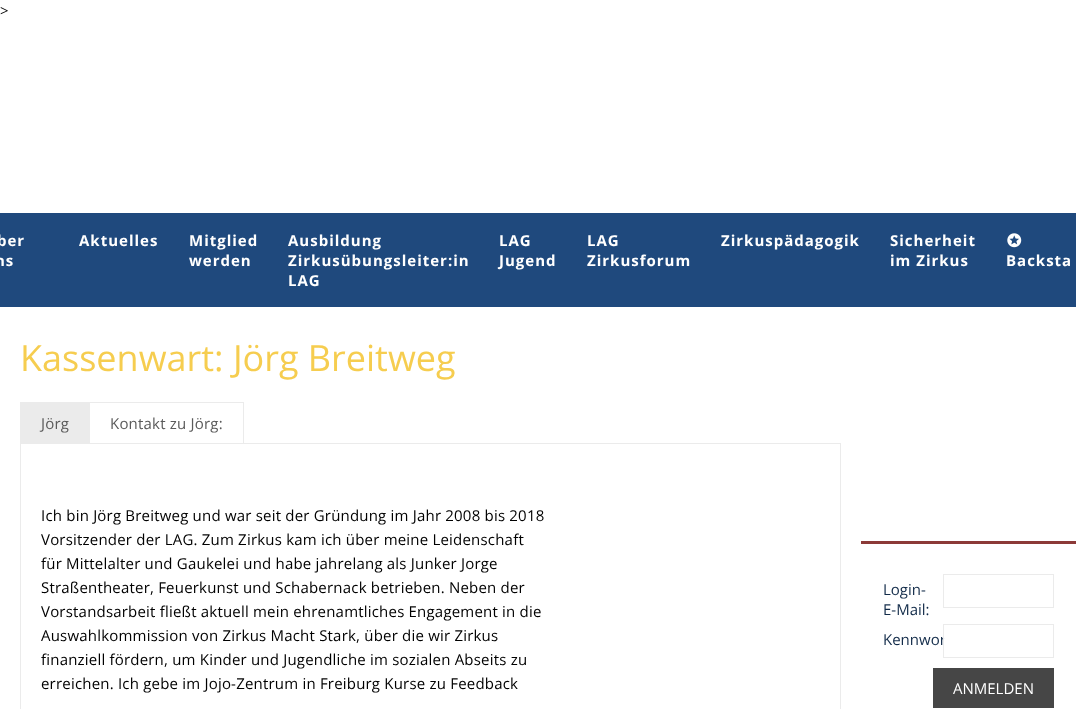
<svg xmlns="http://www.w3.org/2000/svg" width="1076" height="709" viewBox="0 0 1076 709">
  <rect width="100%" height="100%" fill="rgb(255,255,255)"/>
  <text x="0" y="16" font-family="Open Sans" font-size="15" letter-spacing="0.2" fill="rgb(0,0,0)">&gt;</text>
  <rect x="0" y="213" width="1076" height="94" fill="rgb(31,73,125)"/>
  <g font-family="Open Sans" font-size="15" font-weight="bold" letter-spacing="1" fill="rgb(255,255,255)">
    <text x="-3" y="246">ber</text>
    <text x="-5" y="266">ns</text>
    <text x="79" y="246">Aktuelles</text>
    <text>
      <tspan x="189" y="246">Mitglied</tspan>
      <tspan x="189" y="266">werden</tspan>
    </text>
    <text>
      <tspan x="288" y="246">Ausbildung</tspan>
      <tspan x="288" y="266">Zirkusübungsleiter:in</tspan>
      <tspan x="288" y="286">LAG</tspan>
    </text>
    <text>
      <tspan x="499" y="246">LAG</tspan>
      <tspan x="499" y="266">Jugend</tspan>
    </text>
    <text>
      <tspan x="587" y="246">LAG</tspan>
      <tspan x="587" y="266">Zirkusforum</tspan>
    </text>
    <text x="721" y="246">Zirkuspädagogik</text>
    <text>
      <tspan x="890" y="246">Sicherheit</tspan>
      <tspan x="890" y="266">im Zirkus</tspan>
    </text>
  </g>
  <image x="1007" y="233" width="15" height="15" href="pic1.png"/>
  <text x="1006" y="266" font-family="Open Sans" font-size="15" font-weight="bold" letter-spacing="1" fill="rgb(255,255,255)">Backsta</text>
  <text x="20" y="371" font-family="Open Sans" font-size="36" fill="rgb(246,205,79)">Kassenwart: Jörg Breitweg</text>
  <rect x="89" y="402" width="155" height="1" fill="rgb(235,235,235)"/>
  <rect x="20" y="402" width="70" height="41" fill="rgb(235,235,235)"/>
  <text x="41" y="429" font-family="Open Sans" font-size="15" letter-spacing="0.2" fill="rgb(90,90,90)">Jörg</text>
  <rect x="243" y="402" width="1" height="41" fill="rgb(235,235,235)"/>
  <text x="110" y="429" font-family="Open Sans" font-size="15" letter-spacing="0.2" fill="rgb(90,90,90)">Kontakt zu Jörg:</text>
  <rect x="20.5" y="443.5" width="820" height="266" fill="none" stroke="rgb(235,235,235)"/>
  <g font-family="Open Sans" font-size="15" letter-spacing="0.2" fill="rgb(0,0,0)">
    <text>
      <tspan x="41" y="521">Ich bin Jörg Breitweg und war seit der Gründung im Jahr 2008 bis 2018</tspan>
      <tspan x="41" y="545">Vorsitzender der LAG. Zum Zirkus kam ich über meine Leidenschaft</tspan>
      <tspan x="41" y="569">für Mittelalter und Gaukelei und habe jahrelang als Junker Jorge</tspan>
      <tspan x="41" y="593">Straßentheater, Feuerkunst und Schabernack betrieben. Neben der</tspan>
      <tspan x="41" y="617">Vorstandsarbeit fließt aktuell mein ehrenamtliches Engagement in die</tspan>
      <tspan x="41" y="641">Auswahlkommission von Zirkus Macht Stark, über die wir Zirkus</tspan>
      <tspan x="41" y="665">finanziell fördern, um Kinder und Jugendliche im sozialen Abseits zu</tspan>
      <tspan x="41" y="689">erreichen. Ich gebe im Jojo-Zentrum in Freiburg Kurse zu Feedback</tspan>
    </text>
  </g>
  <rect x="861" y="541" width="215" height="3" fill="rgb(140,58,56)"/>
  <g font-family="Open Sans" font-size="15" fill="rgb(18,43,73)">
    <text>
      <tspan x="883" y="595">Login-</tspan>
      <tspan x="883" y="615">E-Mail:</tspan>
    </text>
  </g>
  <rect x="943.5" y="574.5" width="110" height="33" fill="none" stroke="rgb(235,235,235)"/>
  <text x="883" y="645" font-family="Open Sans" font-size="15" fill="rgb(18,43,73)">Kennwor</text>
  <rect x="944" y="636" width="2" height="2" fill="rgb(255,255,255)"/>
  <rect x="943.5" y="624.5" width="110" height="33" fill="none" stroke="rgb(235,235,235)"/>
  <rect x="933" y="668" width="121" height="40" fill="rgb(70,70,70)"/>
  <text x="953" y="694" font-family="Open Sans" font-size="15" fill="rgb(255,255,255)">ANMELDEN</text>
</svg>
